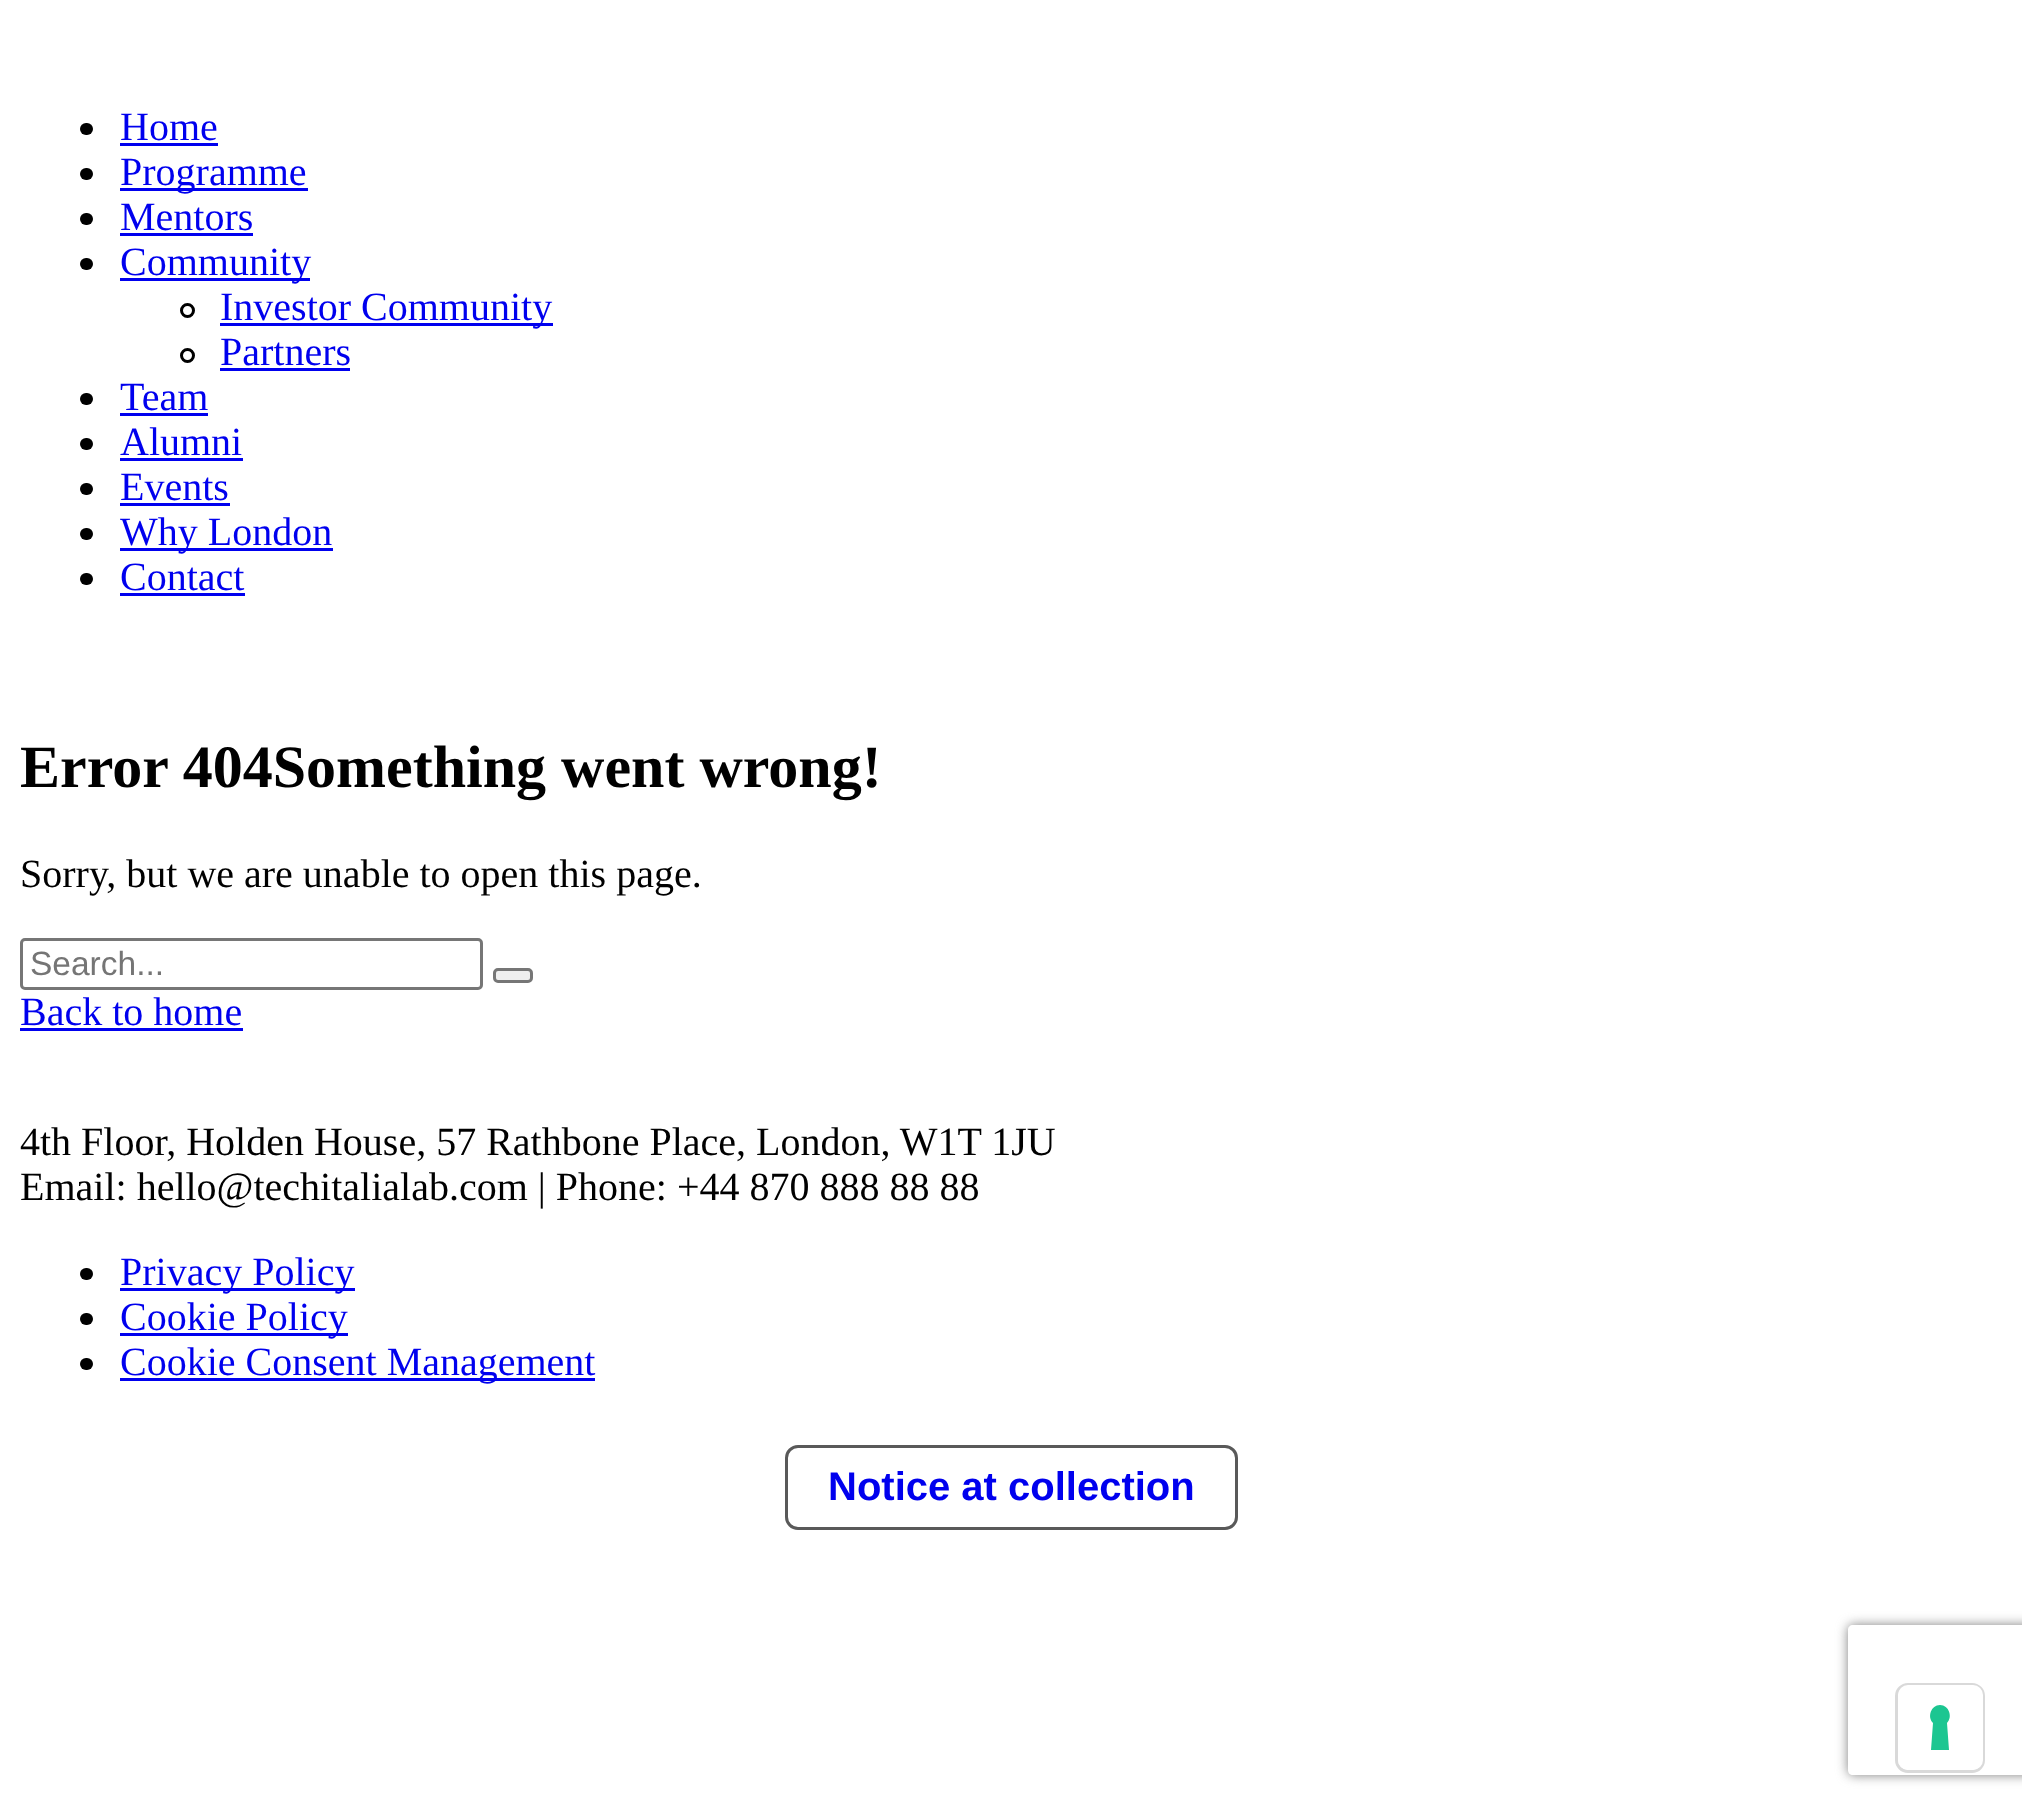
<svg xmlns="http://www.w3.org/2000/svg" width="2022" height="1809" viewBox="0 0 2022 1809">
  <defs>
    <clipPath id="clip1"><path d="M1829 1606H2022V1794H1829ZM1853 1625H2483C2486 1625 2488 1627 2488 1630V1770C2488 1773 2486 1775 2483 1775H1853C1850 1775 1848 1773 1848 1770V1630C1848 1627 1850 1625 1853 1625Z" clip-rule="evenodd"/></clipPath>
  </defs>
  <rect width="100%" height="100%" fill="rgb(255,255,255)"/>
  <rect x="80" y="123" width="13" height="12" rx="6" fill="rgb(0,0,0)"/>
  <text x="120" y="140" font-family="Liberation Serif" font-size="40" fill="rgb(0,0,238)">Home</text>
  <rect x="120" y="143" width="98" height="3" fill="rgb(0,0,238)"/>
  <rect x="80" y="168" width="13" height="12" rx="6" fill="rgb(0,0,0)"/>
  <rect x="120" y="188" width="188" height="3" fill="rgb(0,0,238)"/>
  <text x="120" y="185" font-family="Liberation Serif" font-size="40" fill="rgb(0,0,238)">Programme</text>
  <rect x="80" y="213" width="13" height="12" rx="6" fill="rgb(0,0,0)"/>
  <text x="120" y="230" font-family="Liberation Serif" font-size="40" fill="rgb(0,0,238)">Mentors</text>
  <rect x="120" y="233" width="133" height="3" fill="rgb(0,0,238)"/>
  <rect x="80" y="258" width="13" height="12" rx="6" fill="rgb(0,0,0)"/>
  <rect x="120" y="278" width="190" height="3" fill="rgb(0,0,238)"/>
  <text x="120" y="275" font-family="Liberation Serif" font-size="40" fill="rgb(0,0,238)">Community</text>
  <circle cx="187.5" cy="310.5" r="6" fill="none" stroke="rgb(0,0,0)" stroke-width="3"/>
  <rect x="220" y="323" width="333" height="3" fill="rgb(0,0,238)"/>
  <text x="220" y="320" font-family="Liberation Serif" font-size="40" fill="rgb(0,0,238)">Investor Community</text>
  <circle cx="187.5" cy="355.5" r="6" fill="none" stroke="rgb(0,0,0)" stroke-width="3"/>
  <text x="220" y="365" font-family="Liberation Serif" font-size="40" fill="rgb(0,0,238)">Partners</text>
  <rect x="220" y="368" width="130" height="3" fill="rgb(0,0,238)"/>
  <rect x="80" y="393" width="13" height="12" rx="6" fill="rgb(0,0,0)"/>
  <text x="120" y="410" font-family="Liberation Serif" font-size="40" fill="rgb(0,0,238)">Team</text>
  <rect x="120" y="413" width="88" height="3" fill="rgb(0,0,238)"/>
  <rect x="80" y="438" width="13" height="12" rx="6" fill="rgb(0,0,0)"/>
  <text x="120" y="455" font-family="Liberation Serif" font-size="40" fill="rgb(0,0,238)">Alumni</text>
  <rect x="120" y="458" width="123" height="3" fill="rgb(0,0,238)"/>
  <rect x="80" y="483" width="13" height="12" rx="6" fill="rgb(0,0,0)"/>
  <text x="120" y="500" font-family="Liberation Serif" font-size="40" fill="rgb(0,0,238)">Events</text>
  <rect x="120" y="503" width="110" height="3" fill="rgb(0,0,238)"/>
  <rect x="80" y="528" width="13" height="12" rx="6" fill="rgb(0,0,0)"/>
  <rect x="120" y="548" width="213" height="3" fill="rgb(0,0,238)"/>
  <text x="120" y="545" font-family="Liberation Serif" font-size="40" fill="rgb(0,0,238)">Why London</text>
  <rect x="80" y="573" width="13" height="12" rx="6" fill="rgb(0,0,0)"/>
  <text x="120" y="590" font-family="Liberation Serif" font-size="40" fill="rgb(0,0,238)">Contact</text>
  <rect x="120" y="593" width="125" height="3" fill="rgb(0,0,238)"/>
  <text x="20" y="787" font-family="Liberation Serif" font-size="60" font-weight="bold" fill="rgb(0,0,0)">Error 404Something went wrong!</text>
  <text x="20" y="887" font-family="Liberation Serif" font-size="40" fill="rgb(0,0,0)">Sorry, but we are unable to open this page.</text>
  <rect x="21.5" y="939.5" width="460" height="49" rx="3.5" fill="none" stroke="rgb(118,118,118)" stroke-width="3"/>
  <text x="30" y="975" font-family="Liberation Sans" font-size="33.5" fill="rgb(117,117,117)">Search...</text>
  <rect x="494.5" y="969.5" width="37" height="12" rx="3.5" fill="rgb(239,239,239)" stroke="rgb(118,118,118)" stroke-width="3"/>
  <text x="20" y="1025" font-family="Liberation Serif" font-size="40" fill="rgb(0,0,238)">Back to home</text>
  <rect x="20" y="1028" width="223" height="3" fill="rgb(0,0,238)"/>
  <g font-family="Liberation Serif" font-size="40" fill="rgb(0,0,0)">
    <text>
      <tspan x="20" y="1155">4th Floor, Holden House, 57 Rathbone Place, London, W1T 1JU</tspan>
      <tspan x="20" y="1200">Email: hello@techitalialab.com | Phone: +44 870 888 88 88</tspan>
    </text>
  </g>
  <rect x="80" y="1268" width="13" height="12" rx="6" fill="rgb(0,0,0)"/>
  <rect x="120" y="1288" width="235" height="3" fill="rgb(0,0,238)"/>
  <text x="120" y="1285" font-family="Liberation Serif" font-size="40" fill="rgb(0,0,238)">Privacy Policy</text>
  <rect x="80" y="1313" width="13" height="12" rx="6" fill="rgb(0,0,0)"/>
  <rect x="120" y="1333" width="228" height="3" fill="rgb(0,0,238)"/>
  <text x="120" y="1330" font-family="Liberation Serif" font-size="40" fill="rgb(0,0,238)">Cookie Policy</text>
  <rect x="80" y="1358" width="13" height="12" rx="6" fill="rgb(0,0,0)"/>
  <rect x="120" y="1378" width="475" height="3" fill="rgb(0,0,238)"/>
  <text x="120" y="1375" font-family="Liberation Serif" font-size="40" fill="rgb(0,0,238)">Cookie Consent Management</text>
  <rect x="786.5" y="1446.5" width="450" height="82" rx="11.5" fill="none" stroke="rgb(89,89,89)" stroke-width="3"/>
  <text x="828" y="1500" font-family="Liberation Sans" font-size="40" font-weight="bold" fill="rgb(0,0,238)">Notice at collection</text>
  <g clip-path="url(#clip1)">
    <rect x="1848" y="1625" width="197" height="150" rx="5" fill="rgb(128,128,128)" filter="blur(6px)"/>
  </g>
  <rect x="1896.5" y="1684.5" width="87" height="87" rx="11.5" fill="none" stroke="rgb(217,217,217)" stroke-width="3"/>
  <rect x="1898" y="1685" width="85" height="85" rx="10" fill="rgb(255,255,255)"/>
  <path d="M1940 1705C1949 1705 1953 1717 1947 1723L1949 1750H1931L1933 1723C1927 1717 1931 1705 1940 1705Z" fill="rgb(28,198,145)" fill-rule="evenodd"/>
</svg>
